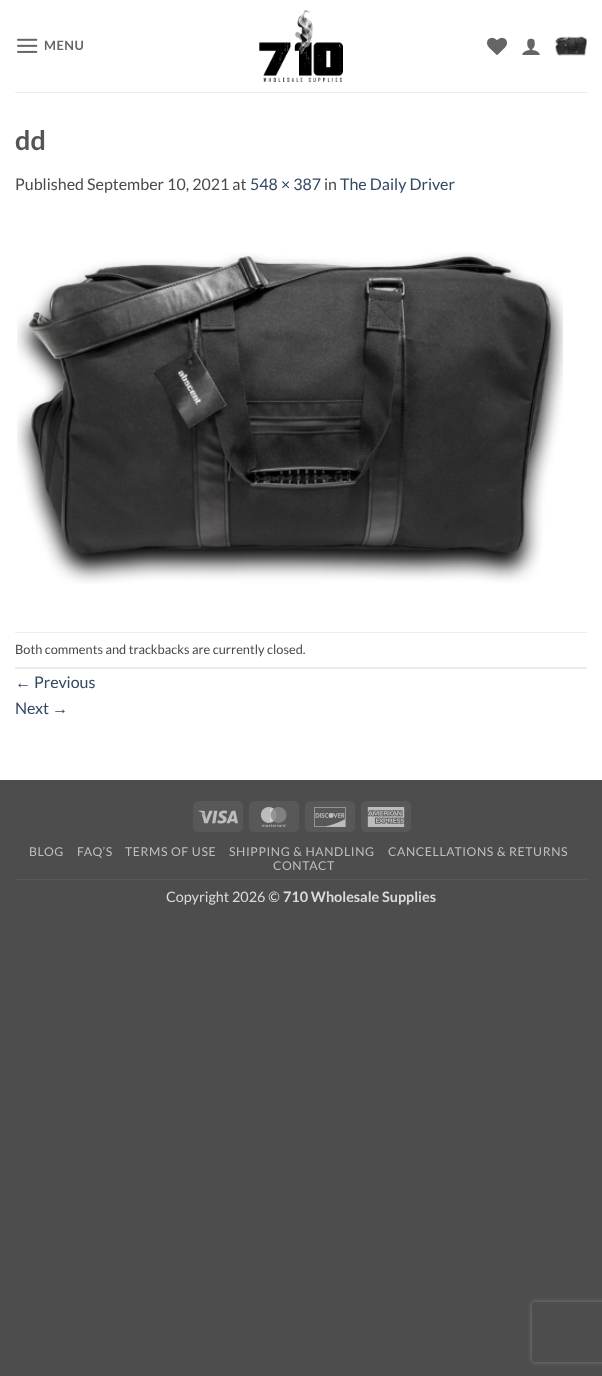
<svg xmlns="http://www.w3.org/2000/svg" width="602" height="1376" viewBox="0 0 602 1376">
  <defs>
    <clipPath id="clip1"><path d="M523 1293H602V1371H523ZM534 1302H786C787 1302 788 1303 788 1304V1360C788 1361 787 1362 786 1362H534C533 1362 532 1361 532 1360V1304C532 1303 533 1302 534 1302Z" clip-rule="evenodd"/></clipPath>
  </defs>
  <rect width="100%" height="100%" fill="rgb(77,77,77)"/>
  <rect x="0" y="0" width="602" height="780" fill="rgb(255,255,255)"/>
  <image x="17" y="38" width="21" height="15" href="pic1.png"/>
  <text x="44" y="50" font-family="Lato" font-size="12.8" font-weight="bold" letter-spacing="0.5" fill="rgb(101,101,101)">MENU</text>
  <image x="259" y="10" width="84" height="72" href="pic2.png"/>
  <image x="487" y="37" width="20" height="18" href="pic3.png"/>
  <image x="522" y="38" width="18" height="17" href="pic4.png"/>
  <image x="555" y="36" width="32" height="20" href="pic5.png"/>
  <rect x="15" y="92" width="572" height="1" fill="rgb(237,237,237)"/>
  <text x="15" y="150" font-family="Lato" font-size="27" font-weight="bold" fill="rgb(85,85,85)">dd</text>
  <text x="15" y="190" font-family="Lato" font-size="16" fill="rgb(74,74,74)">Published September 10, 2021 at</text>
  <text x="250" y="190" font-family="Lato" font-size="16" fill="rgb(51,72,98)">548 × 387</text>
  <text x="324" y="190" font-family="Lato" font-size="16" fill="rgb(74,74,74)">in</text>
  <text x="340" y="190" font-family="Lato" font-size="16" fill="rgb(51,72,98)">The Daily Driver</text>
  <image x="17" y="252" width="546" height="332" href="pic6.png"/>
  <rect x="15" y="632" width="572" height="1" fill="rgb(236,236,236)"/>
  <rect x="15" y="667" width="572" height="2" fill="rgb(236,236,236)"/>
  <text x="15" y="654" font-family="Lato" font-size="12.8" fill="rgb(74,74,74)">Both comments and trackbacks are currently closed.</text>
  <text x="15" y="688" font-family="Liberation Sans" font-size="16" fill="rgb(51,72,98)">←</text>
  <g font-family="Lato" font-size="16" fill="rgb(51,72,98)">
    <text x="34" y="688">Previous</text>
    <text x="15" y="714">Next</text>
  </g>
  <text x="52" y="714" font-family="Liberation Sans" font-size="16" fill="rgb(51,72,98)">→</text>
  <rect x="193" y="801" width="50" height="31" rx="5" fill="rgb(88,88,88)"/>
  <image x="198" y="810" width="40" height="14" href="pic7.png"/>
  <rect x="249" y="801" width="50" height="31" rx="5" fill="rgb(88,88,88)"/>
  <image x="260" y="807" width="27" height="20" href="pic8.png"/>
  <rect x="305" y="801" width="50" height="31" rx="5" fill="rgb(88,88,88)"/>
  <image x="314" y="807" width="32" height="20" href="pic9.png"/>
  <rect x="361" y="801" width="50" height="31" rx="5" fill="rgb(88,88,88)"/>
  <image x="367" y="807" width="38" height="20" href="pic10.png"/>
  <rect x="15" y="879" width="572" height="1" fill="rgb(88,88,88)"/>
  <g font-family="Lato" font-size="12.25" letter-spacing="0.6" fill="rgb(191,191,191)">
    <text x="29" y="856">BLOG</text>
    <text x="77" y="856">FAQ’S</text>
    <text x="125" y="856">TERMS OF USE</text>
    <text x="229" y="856">SHIPPING &amp; HANDLING</text>
    <text x="388" y="856">CANCELLATIONS &amp; RETURNS</text>
    <text x="273" y="870">CONTACT</text>
  </g>
  <text x="166" y="902" font-family="Lato" font-size="14.4" fill="rgb(219,219,219)">Copyright 2026 ©</text>
  <text x="283" y="902" font-family="Lato" font-size="14.4" font-weight="bold" fill="rgb(219,219,219)">710 Wholesale Supplies</text>
  <g clip-path="url(#clip1)">
    <rect x="532" y="1302" width="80" height="60" rx="2" fill="rgb(128,128,128)" filter="blur(2.5px)"/>
  </g>
</svg>
